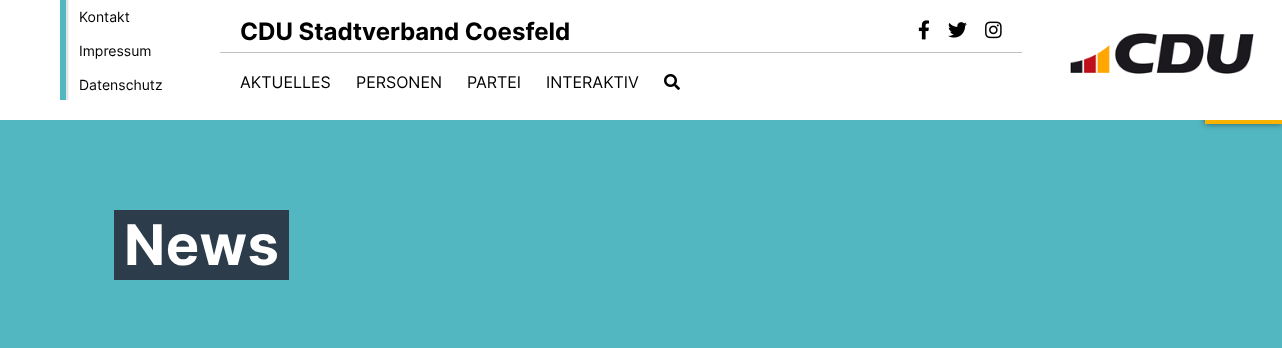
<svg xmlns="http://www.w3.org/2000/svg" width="1282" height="348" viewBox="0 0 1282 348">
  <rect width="100%" height="100%" fill="rgb(82,183,193)"/>
  <rect x="1205" y="79" width="77" height="45" fill="rgba(0,0,0,0.5)" filter="blur(3px)"/>
  <rect x="0" y="0" width="1282" height="120" fill="rgb(255,255,255)"/>
  <image x="60" y="0" width="9" height="100" href="pic1.png"/>
  <g font-family="Inter" font-size="14" fill="rgb(0,0,0)">
    <text x="79" y="22">Kontakt</text>
    <text x="79" y="56">Impressum</text>
    <text x="79" y="90">Datenschutz</text>
  </g>
  <rect x="220" y="52" width="802" height="1" fill="rgb(192,192,192)"/>
  <text x="240" y="40" font-family="Inter" font-size="24" font-weight="bold" fill="rgb(0,0,0)">CDU Stadtverband Coesfeld</text>
  <image x="918" y="20" width="12" height="20" href="pic2.png"/>
  <image x="948" y="22" width="19" height="16" href="pic3.png"/>
  <image x="985" y="21" width="17" height="18" href="pic4.png"/>
  <image x="1070" y="33" width="184" height="41" href="pic5.png"/>
  <g font-family="Inter" font-size="16" fill="rgb(0,0,0)">
    <text x="240" y="88">AKTUELLES</text>
    <text x="356" y="88">PERSONEN</text>
    <text x="467" y="88">PARTEI</text>
    <text x="546" y="88">INTERAKTIV</text>
  </g>
  <image x="664" y="74" width="16" height="16" href="pic6.png"/>
  <rect x="1205" y="120" width="77" height="4" fill="rgb(250,178,0)"/>
  <rect x="114" y="210" width="175" height="70" fill="rgb(45,60,75)"/>
  <text x="124" y="265" font-family="Inter" font-size="56" font-weight="bold" letter-spacing="0.5" fill="rgb(255,255,255)">News</text>
</svg>
